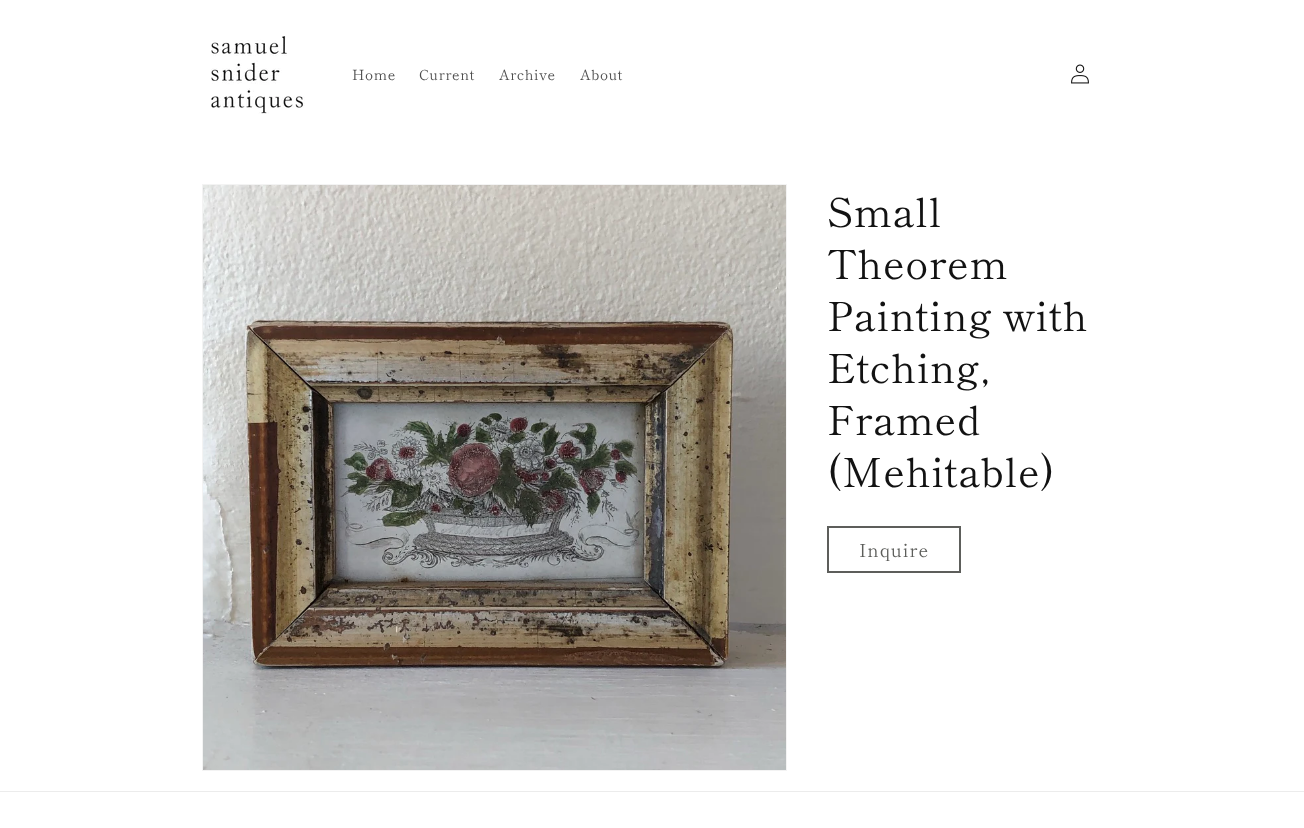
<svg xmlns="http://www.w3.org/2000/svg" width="1304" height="828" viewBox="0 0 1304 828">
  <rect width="100%" height="100%" fill="rgb(255,255,255)"/>
  <image x="211" y="36" width="94" height="78" href="pic1.png"/>
  <g font-family="Shippori Mincho" font-size="14" letter-spacing="0.6" fill="rgb(77,77,77)">
    <text x="352" y="80">Home</text>
    <text x="419" y="80">Current</text>
    <text x="499" y="80">Archive</text>
    <text x="580" y="80">About</text>
  </g>
  <image x="1071" y="64" width="18" height="20" href="pic2.png"/>
  <rect x="202.5" y="184.5" width="584" height="586" fill="none" stroke="rgb(243,243,243)"/>
  <image x="203" y="185" width="583" height="585" href="pic3.png"/>
  <g font-family="Shippori Mincho" font-size="40" letter-spacing="0.6" fill="rgb(18,18,18)">
    <text>
      <tspan x="827" y="227">Small</tspan>
      <tspan x="827" y="279">Theorem</tspan>
      <tspan x="827" y="331">Painting with</tspan>
      <tspan x="827" y="383">Etching,</tspan>
      <tspan x="827" y="435">Framed</tspan>
      <tspan x="827" y="487">(Mehitable)</tspan>
    </text>
  </g>
  <rect x="828" y="527" width="132" height="45" fill="none" stroke="rgb(93,94,91)" stroke-width="2"/>
  <text x="859" y="557" font-family="Shippori Mincho" font-size="18" letter-spacing="1" fill="rgb(93,94,91)">Inquire</text>
  <rect x="0" y="791" width="1304" height="1" fill="rgb(236,236,236)"/>
</svg>
